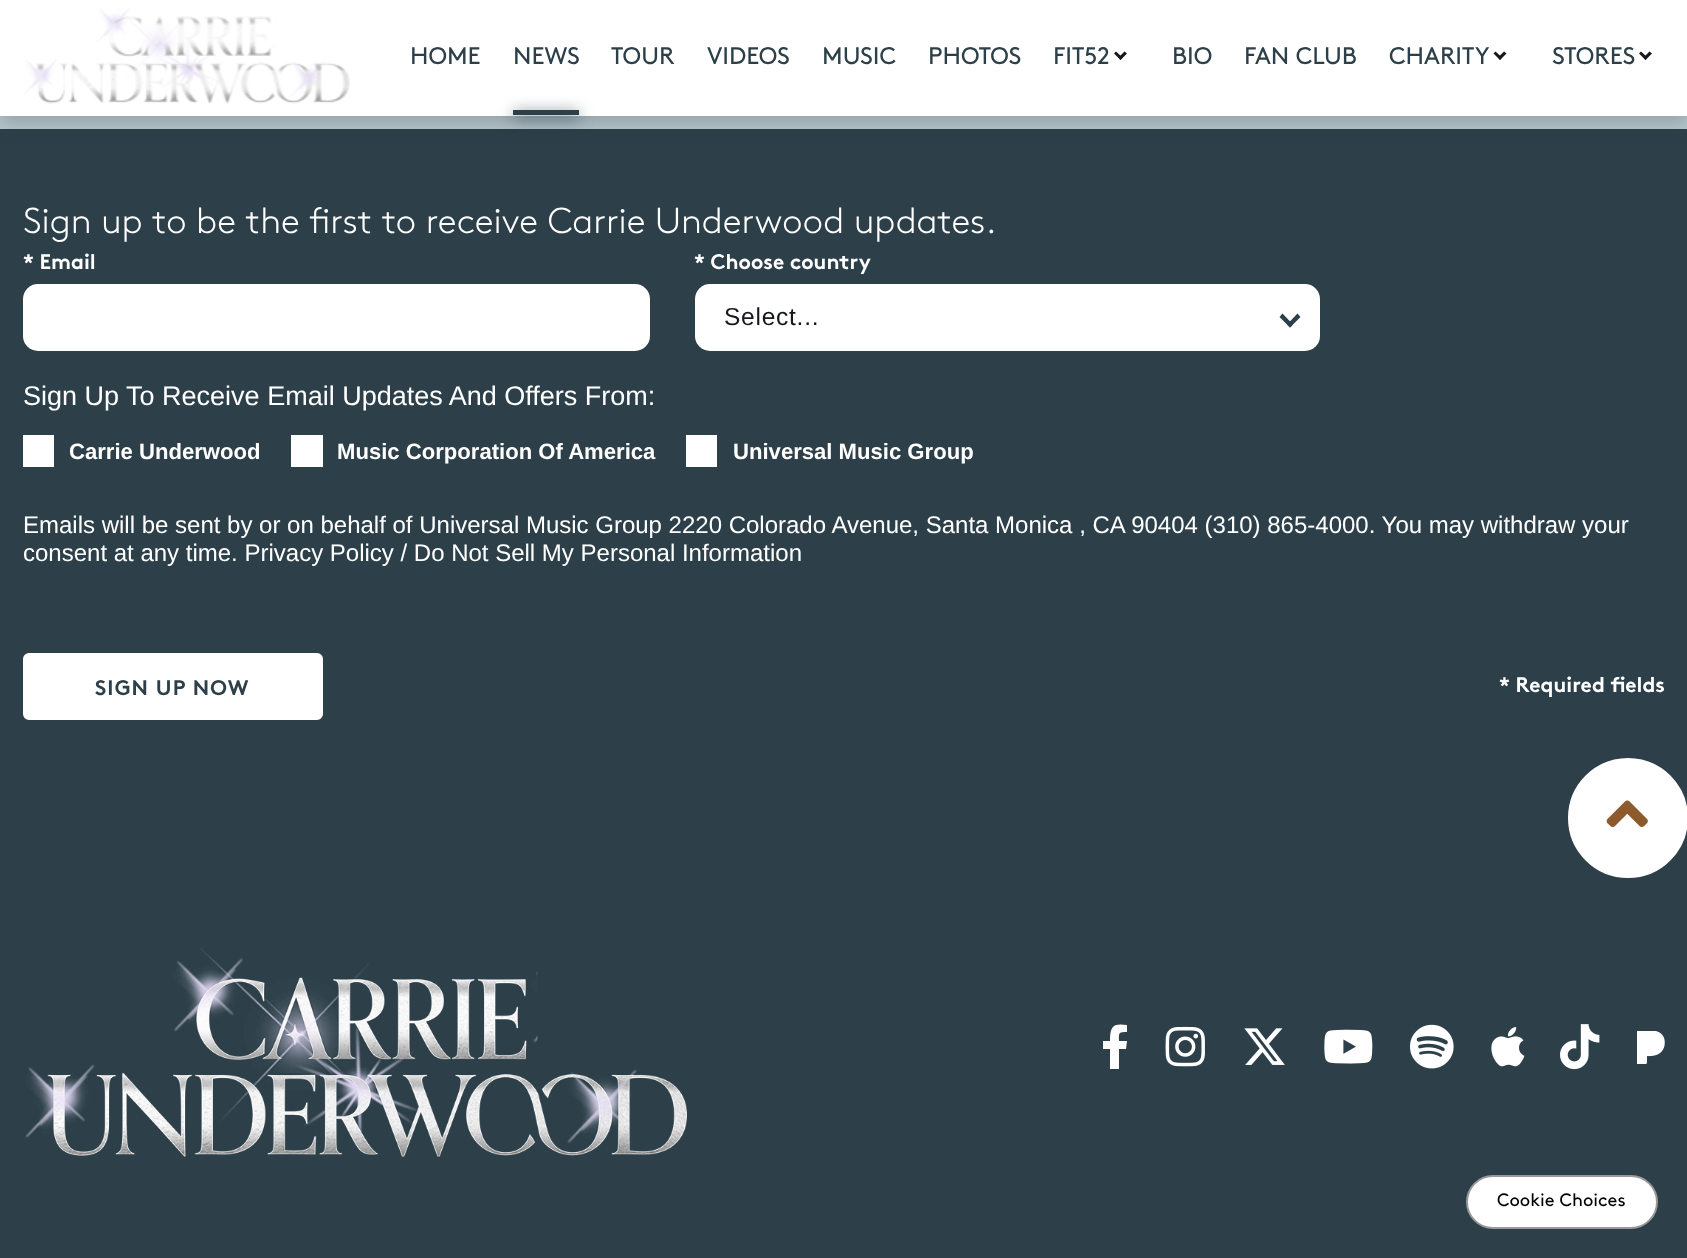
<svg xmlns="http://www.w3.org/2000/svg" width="1687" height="1258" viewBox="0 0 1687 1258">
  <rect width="100%" height="100%" fill="rgb(183,200,207)"/>
  <rect x="0" y="129" width="1687" height="1129" fill="rgb(45,64,73)"/>
  <rect x="0" y="9" width="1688" height="116" fill="rgba(22,24,29,0.2)" filter="blur(9px)"/>
  <rect x="0" y="0" width="1687" height="116" fill="rgb(255,255,255)"/>
  <image x="24" y="7" width="326" height="97" href="pic1.png"/>
  <g font-family="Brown" font-size="24" fill="rgb(45,64,73)">
    <text x="410" y="64">HOME</text>
    <text x="513" y="64">NEWS</text>
  </g>
  <rect x="513" y="113" width="66" height="5" fill="rgb(45,64,73)" filter="blur(7.5px)"/>
  <rect x="513" y="110" width="66" height="5" fill="rgb(45,64,73)"/>
  <g font-family="Brown" font-size="24" fill="rgb(45,64,73)">
    <text x="611" y="64">TOUR</text>
    <text x="707" y="64">VIDEOS</text>
    <text x="822" y="64">MUSIC</text>
    <text x="928" y="64">PHOTOS</text>
    <text x="1053" y="64">FIT52</text>
  </g>
  <path d="M1118.5 57.5L1124.5 51.5L1127 53.5L1120.5 60Z" fill="rgb(22,24,29)"/>
  <path d="M1114 53.5L1116 51.5L1122.5 57.5L1120.5 60Z" fill="rgb(22,24,29)"/>
  <g font-family="Brown" font-size="24" fill="rgb(45,64,73)">
    <text x="1172" y="64">BIO</text>
    <text x="1244" y="64">FAN CLUB</text>
    <text x="1389" y="64">CHARITY</text>
  </g>
  <path d="M1498 57.5L1504 51.5L1506.5 53.5L1500 60Z" fill="rgb(22,24,29)"/>
  <path d="M1493.5 53.5L1495.5 51.5L1502 57.5L1500 60Z" fill="rgb(22,24,29)"/>
  <text x="1552" y="64" font-family="Brown" font-size="24" fill="rgb(45,64,73)">STORES</text>
  <path d="M1643.5 57.5L1649.5 51.5L1652 53.5L1645.5 60Z" fill="rgb(22,24,29)"/>
  <path d="M1639 53.5L1641 51.5L1647.5 57.5L1645.5 60Z" fill="rgb(22,24,29)"/>
  <text x="23" y="233" font-family="Brown" font-size="36" font-weight="300" fill="rgb(255,255,255)">Sign up to be the first to receive Carrie Underwood updates.</text>
  <text x="23" y="269" font-family="Brown" font-size="21" font-weight="bold" fill="rgb(255,255,255)">* Email</text>
  <rect x="23" y="284" width="627" height="67" rx="15" fill="rgb(255,255,255)"/>
  <text x="694" y="269" font-family="Brown" font-size="21" font-weight="bold" fill="rgb(255,255,255)">* Choose country</text>
  <rect x="695" y="284" width="625" height="67" rx="15" fill="rgb(255,255,255)"/>
  <text x="724" y="325" font-family="Liberation Sans" font-size="24.5" letter-spacing="0.75" fill="rgb(22,24,29)">Select...</text>
  <path d="M1287 324.5L1297.5 313.5L1300.5 317L1290 327.5Z" fill="rgb(45,64,73)"/>
  <path d="M1279.5 317L1282.5 313.5L1293 324.5L1290 327.5Z" fill="rgb(45,64,73)"/>
  <text x="23" y="405" font-family="Liberation Sans" font-size="27" fill="rgb(255,255,255)">Sign Up To Receive Email Updates And Offers From:</text>
  <rect x="23" y="435" width="31" height="32" fill="rgb(255,255,255)"/>
  <text x="69" y="459" font-family="Liberation Sans" font-size="22.1" font-weight="bold" fill="rgb(255,255,255)">Carrie Underwood</text>
  <rect x="291" y="435" width="32" height="32" fill="rgb(255,255,255)"/>
  <text x="337" y="459" font-family="Liberation Sans" font-size="22.1" font-weight="bold" fill="rgb(255,255,255)">Music Corporation Of America</text>
  <rect x="686" y="435" width="31" height="32" fill="rgb(255,255,255)"/>
  <text x="733" y="459" font-family="Liberation Sans" font-size="22.1" font-weight="bold" fill="rgb(255,255,255)">Universal Music Group</text>
  <g font-family="Liberation Sans" font-size="24" fill="rgb(255,255,255)">
    <text>
      <tspan x="23" y="533">Emails will be sent by or on behalf of Universal Music Group 2220 Colorado Avenue, Santa Monica , CA 90404 (310) 865-4000. You may withdraw your</tspan>
      <tspan x="23" y="561">consent at any time. Privacy Policy / Do Not Sell My Personal Information</tspan>
    </text>
  </g>
  <rect x="24" y="654" width="298" height="65" rx="5" fill="rgb(255,255,255)" stroke="rgb(255,255,255)" stroke-width="2"/>
  <text x="95" y="695" font-family="Brown" font-size="21" font-weight="bold" letter-spacing="1.1" fill="rgb(45,64,73)">SIGN UP NOW</text>
  <text x="1499" y="692" font-family="Brown" font-size="21" font-weight="bold" fill="rgb(255,255,255)">* Required fields</text>
  <circle cx="1628" cy="818" r="59" fill="rgb(255,255,255)" stroke="rgb(255,255,255)" stroke-width="2"/>
  <image x="1606" y="800" width="42" height="27" href="pic2.png"/>
  <image x="25" y="946" width="662" height="211" href="pic3.png"/>
  <path d="M1126 1049H1119V1069H1110V1049H1103V1041H1110C1110 1026 1113 1023 1127 1025V1032C1118 1032 1119 1033 1119 1041H1127Z" fill="rgb(255,255,255)"/>
  <image x="1165" y="1026" width="40" height="41" href="pic4.png"/>
  <image x="1244" y="1028" width="41" height="37" href="pic5.png"/>
  <image x="1324" y="1029" width="49" height="35" href="pic6.png"/>
  <image x="1410" y="1024" width="44" height="45" href="pic7.png"/>
  <image x="1491" y="1027" width="34" height="40" href="pic8.png"/>
  <image x="1560" y="1024" width="40" height="46" href="pic9.png"/>
  <image x="1637" y="1031" width="28" height="33" href="pic10.png"/>
  <rect x="1467" y="1176" width="190" height="52" rx="26" fill="rgb(255,255,255)" stroke="rgb(153,153,153)" stroke-width="2"/>
  <text x="1497" y="1206" font-family="Brown" font-size="18" fill="rgb(0,0,0)">Cookie Choices</text>
</svg>
